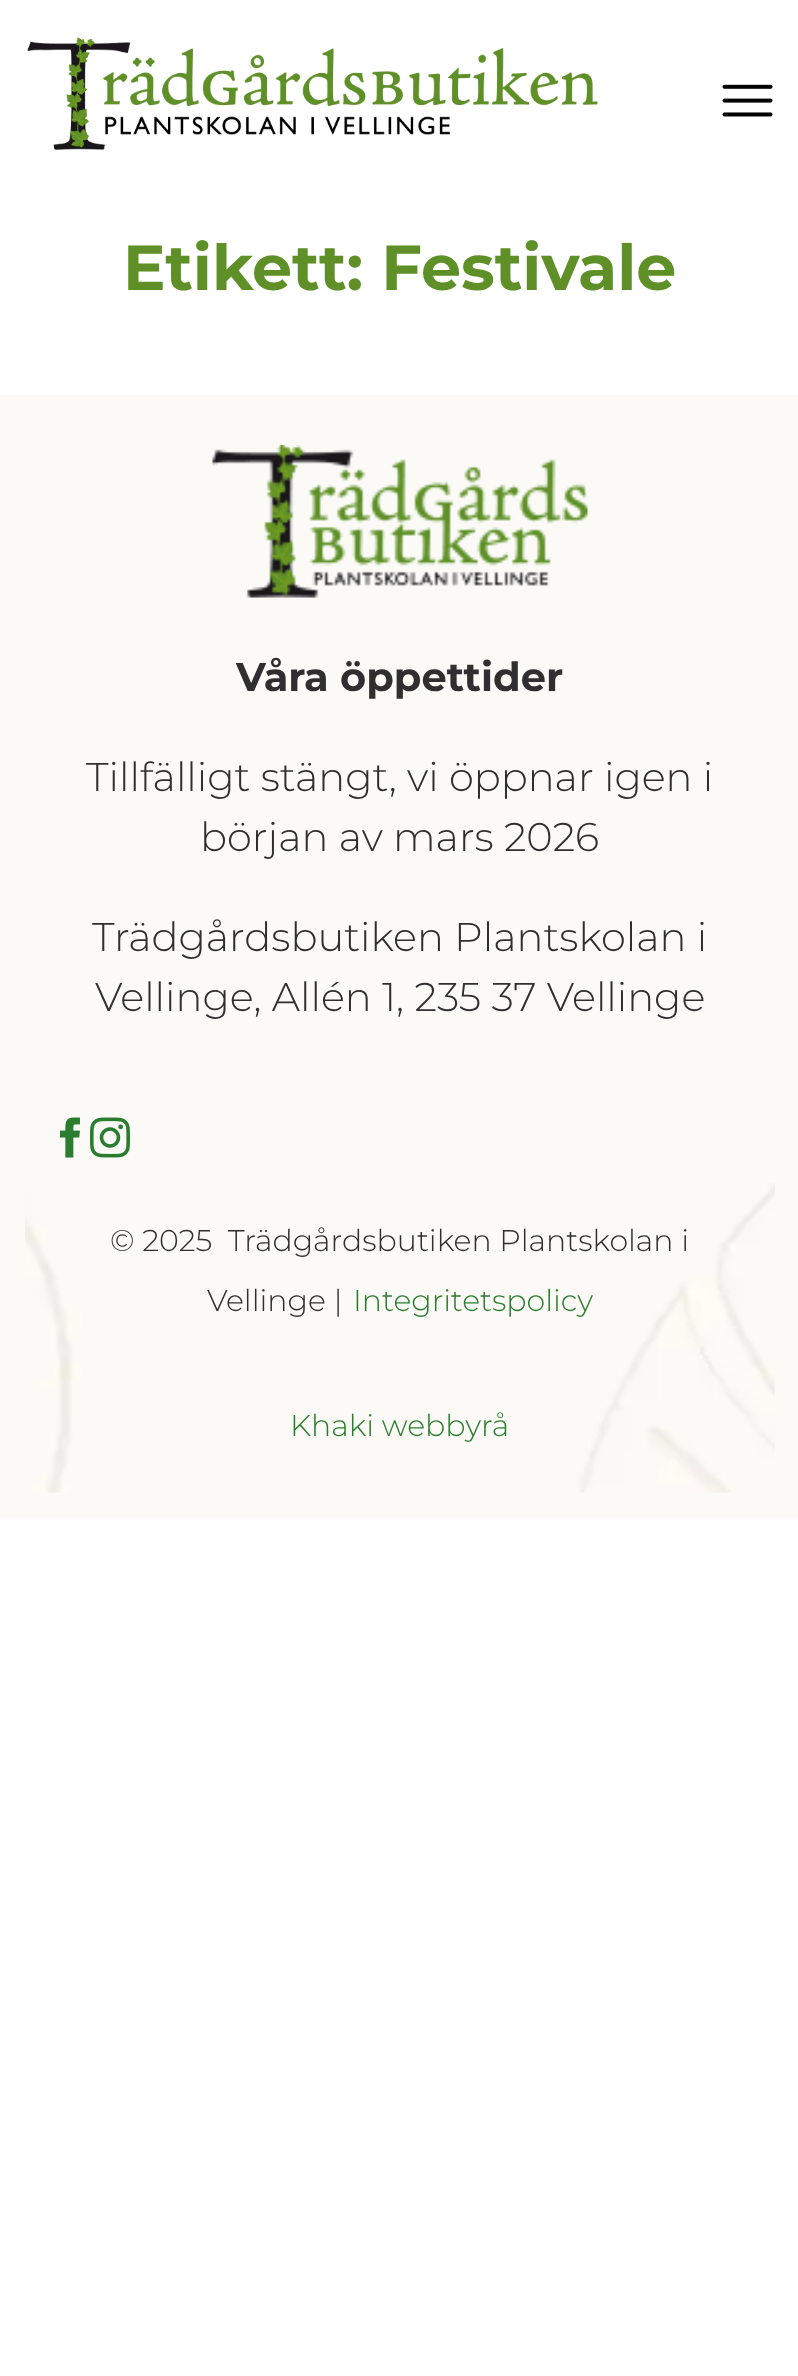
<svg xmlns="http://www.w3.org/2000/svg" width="798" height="2376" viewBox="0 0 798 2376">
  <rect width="100%" height="100%" fill="rgb(255,255,255)"/>
  <image x="27" y="37" width="571" height="113" href="pic1.png"/>
  <image x="722" y="84" width="51" height="33" href="pic2.png"/>
  <text x="123" y="290" font-family="Montserrat" font-size="63.5" font-weight="bold" fill="rgb(95,144,39)">Etikett: Festivale</text>
  <rect x="0" y="395" width="798" height="1123" fill="rgb(252,250,247)"/>
  <image x="25" y="1183" width="750" height="310" href="pic3.png"/>
  <image x="212" y="445" width="376" height="153" href="pic4.png"/>
  <text x="236" y="691" font-family="Montserrat" font-size="40" font-weight="bold" fill="rgb(47,47,47)">Våra öppettider</text>
  <g font-family="Montserrat" font-size="40" font-weight="300" fill="rgb(47,47,47)">
    <text x="86" y="791">Tillfälligt stängt, vi öppnar igen i</text>
    <text x="200" y="851">början av mars 2026</text>
    <text x="92" y="951">Trädgårdsbutiken Plantskolan i</text>
    <text x="95" y="1011">Vellinge, Allén 1, 235 37 Vellinge</text>
  </g>
  <image x="60" y="1117" width="20" height="41" href="pic5.png"/>
  <image x="90" y="1117" width="40" height="41" href="pic6.png"/>
  <g font-family="Montserrat" font-size="30" font-weight="300" fill="rgb(47,47,47)">
    <text x="110" y="1251" xml:space="preserve">© 2025  Trädgårdsbutiken Plantskolan i</text>
    <text x="207" y="1311">Vellinge |</text>
  </g>
  <g font-family="Montserrat" font-size="30" font-weight="300" fill="rgb(42,125,46)">
    <text x="353" y="1311">Integritetspolicy</text>
    <text x="290" y="1436">Khaki webbyrå</text>
  </g>
</svg>
